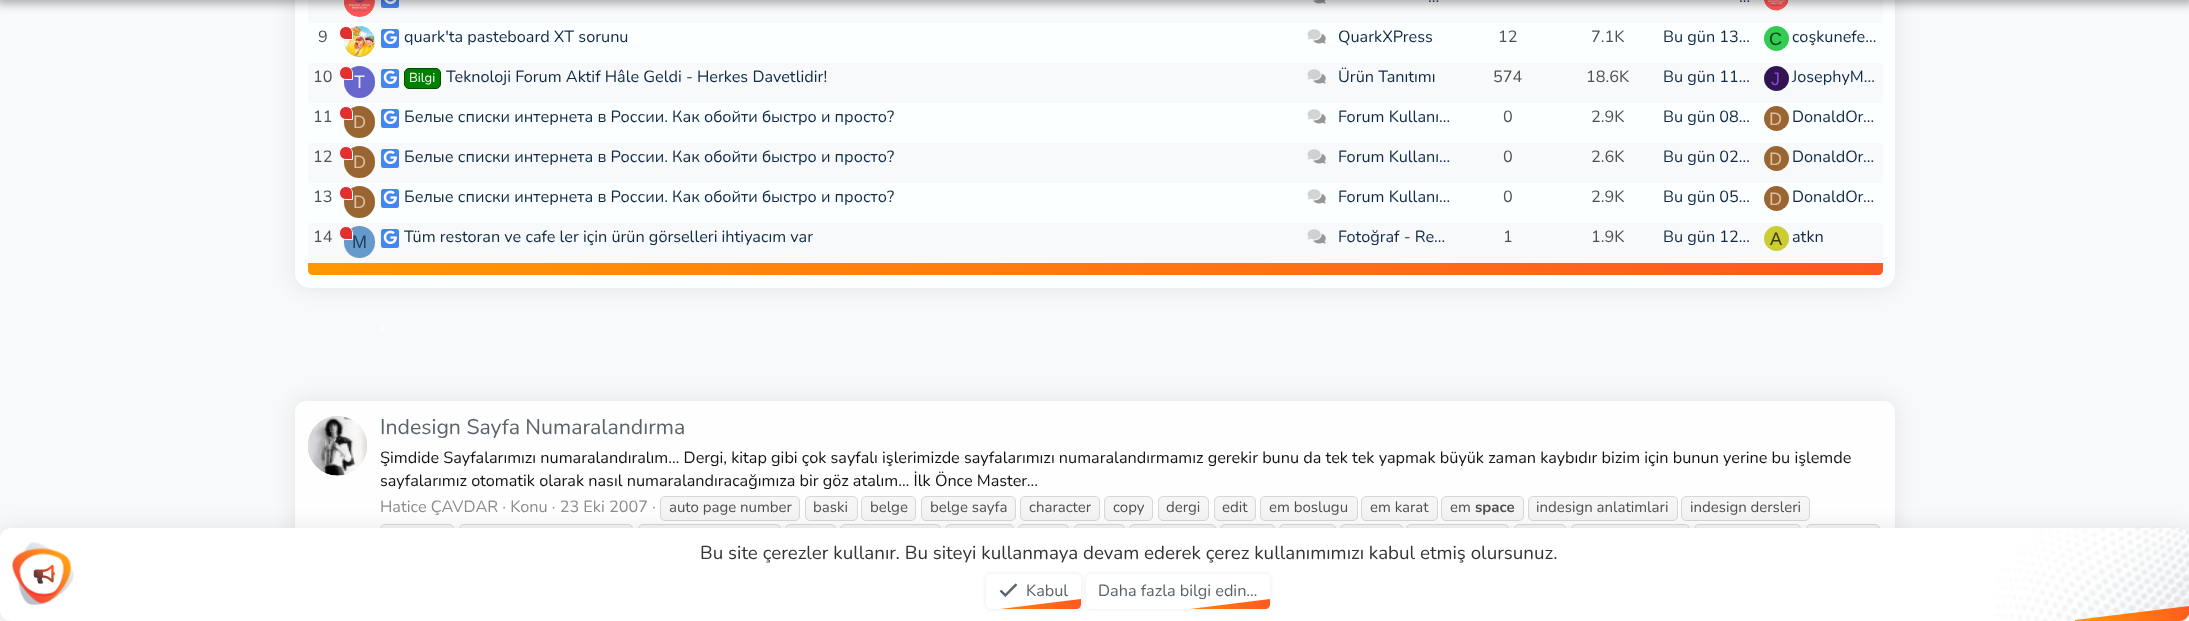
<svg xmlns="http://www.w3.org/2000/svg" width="2189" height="621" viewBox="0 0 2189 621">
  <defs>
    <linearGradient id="g1" gradientUnits="userSpaceOnUse" x1="308" y1="269" x2="1883" y2="269"><stop offset="0" stop-color="rgb(255,152,0)"/><stop offset="1" stop-color="rgb(255,87,34)"/></linearGradient>
    <clipPath id="clip1"><path d="M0 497H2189V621H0ZM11 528H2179C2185 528 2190 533 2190 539V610C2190 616 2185 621 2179 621H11C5 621 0 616 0 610V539C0 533 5 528 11 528Z" clip-rule="evenodd"/></clipPath>
    <linearGradient id="g2" gradientUnits="userSpaceOnUse" x1="960" y1="619" x2="1084" y2="604"><stop offset="0" stop-color="rgb(255,152,0)"/><stop offset="1" stop-color="rgb(255,87,34)"/></linearGradient>
    <linearGradient id="g3" gradientUnits="userSpaceOnUse" x1="1150" y1="619" x2="1274" y2="604"><stop offset="0" stop-color="rgb(255,152,0)"/><stop offset="1" stop-color="rgb(255,87,34)"/></linearGradient>
    <linearGradient id="g4" gradientUnits="userSpaceOnUse" x1="2077" y1="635" x2="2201" y2="620"><stop offset="0" stop-color="rgb(255,152,0)"/><stop offset="1" stop-color="rgb(255,87,34)"/></linearGradient>
  </defs>
  <rect width="100%" height="100%" fill="rgb(248,249,250)"/>
  <rect x="295" y="-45" width="1600" height="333" rx="15" fill="rgba(17,17,26,0.1)" filter="blur(10px)"/>
  <rect x="295" y="-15" width="1600" height="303" rx="15" fill="rgb(252,255,255)"/>
  <rect x="308" y="0" width="1575" height="23" fill="rgb(248,249,250)"/>
  <rect x="344" y="-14" width="31" height="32" rx="15.5" fill="rgb(254,254,254)"/>
  <image x="344" y="0" width="31" height="17" href="pic1.png"/>
  <rect x="381" y="-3" width="18" height="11" rx="2.5" fill="rgb(66,133,244)"/>
  <image x="384" y="0" width="13" height="4" href="pic2.png"/>
  <image x="1313" y="0" width="13" height="4" href="pic3.png"/>
  <rect x="1764" y="-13" width="25" height="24" rx="12.5" fill="rgb(254,254,254)"/>
  <image x="1764" y="0" width="25" height="11" href="pic4.png"/>
  <rect x="-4" y="-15" width="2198" height="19" fill="rgba(0,0,0,0.3)" filter="blur(5px)"/>
  <g font-family="Nunito" font-size="16.25" fill="rgb(17,42,70)">
    <text x="1428" y="2">...</text>
    <text x="1739" y="2">…</text>
  </g>
  <text x="318" y="42" font-family="Nunito" font-size="16.25" fill="rgb(80,80,80)">9</text>
  <image x="344" y="26" width="31" height="31" href="pic5.png"/>
  <path d="M346 26.5C349.5 26.5 352.5 29.5 352.5 33V39.5H346C342.5 39.5 339.5 36.5 339.5 33C339.5 29.5 342.5 26.5 346 26.5Z" fill="rgb(224,48,48)" stroke="rgb(255,255,255)"/>
  <rect x="381" y="29" width="18" height="19" rx="2.5" fill="rgb(66,133,244)"/>
  <image x="383" y="30" width="14" height="14" href="pic6.png"/>
  <text x="404" y="42" font-family="Nunito" font-size="16.25" fill="rgb(17,42,70)">quark'ta pasteboard XT sorunu</text>
  <image x="1313" y="33" width="13" height="11" href="pic8.png"/>
  <image x="1307" y="29" width="14" height="11" href="pic7.png"/>
  <text x="1338" y="42" font-family="Nunito" font-size="16.25" fill="rgb(17,42,70)">QuarkXPress</text>
  <g font-family="Nunito" font-size="16.25" fill="rgb(80,80,80)">
    <text x="1498" y="42">12</text>
    <text x="1591" y="42">7.1K</text>
  </g>
  <text x="1663" y="42" font-family="Nunito" font-size="16.25" fill="rgb(17,42,70)">Bu gün 13…</text>
  <circle cx="1776.5" cy="38.5" r="12.5" fill="rgb(51,204,82)"/>
  <text x="1769" y="45" font-family="Liberation Sans" font-size="18" fill="rgb(15,61,24)">C</text>
  <text x="1792" y="42" font-family="Nunito" font-size="16.25" fill="rgb(17,42,70)">coşkunefe…</text>
  <rect x="308" y="63" width="1575" height="40" fill="rgb(248,249,250)"/>
  <text x="313" y="82" font-family="Nunito" font-size="16.25" fill="rgb(80,80,80)">10</text>
  <rect x="344" y="66" width="31" height="32" rx="15.5" fill="rgb(102,102,204)"/>
  <path d="M346 66.5C349.5 66.5 352.5 69.5 352.5 73V79.5H346C342.5 79.5 339.5 76.5 339.5 73C339.5 69.5 342.5 66.5 346 66.5Z" fill="rgb(224,48,48)" stroke="rgb(255,255,255)"/>
  <text x="354" y="88" font-family="Liberation Sans" font-size="18" fill="rgb(236,236,249)">T</text>
  <rect x="381" y="69" width="18" height="19" rx="2.5" fill="rgb(66,133,244)"/>
  <image x="383" y="70" width="14" height="14" href="pic6.png"/>
  <rect x="404.5" y="68.5" width="36" height="20" rx="4.5" fill="rgb(0,128,0)" stroke="rgb(0,77,0)"/>
  <text x="409" y="82" font-family="Nunito" font-size="13" fill="rgb(255,255,255)">Bilgi</text>
  <text x="446" y="82" font-family="Nunito" font-size="16.25" fill="rgb(17,42,70)">Teknoloji Forum Aktif Hâle Geldi - Herkes Davetlidir!</text>
  <image x="1313" y="73" width="13" height="11" href="pic10.png"/>
  <image x="1307" y="69" width="14" height="11" href="pic9.png"/>
  <text x="1338" y="82" font-family="Nunito" font-size="16.25" fill="rgb(17,42,70)">Ürün Tanıtımı</text>
  <g font-family="Nunito" font-size="16.25" fill="rgb(80,80,80)">
    <text x="1493" y="82">574</text>
    <text x="1586" y="82">18.6K</text>
  </g>
  <text x="1663" y="82" font-family="Nunito" font-size="16.25" fill="rgb(17,42,70)">Bu gün 11…</text>
  <circle cx="1776.5" cy="78.5" r="12.5" fill="rgb(51,20,82)"/>
  <text x="1771" y="85" font-family="Liberation Sans" font-size="18" fill="rgb(140,71,209)">J</text>
  <text x="1792" y="82" font-family="Nunito" font-size="16.25" fill="rgb(17,42,70)">JosephyM…</text>
  <text x="313" y="122" font-family="Nunito" font-size="16.25" fill="rgb(80,80,80)">11</text>
  <rect x="344" y="106" width="31" height="32" rx="15.5" fill="rgb(153,102,51)"/>
  <path d="M346 106.5C349.5 106.5 352.5 109.5 352.5 113V119.5H346C342.5 119.5 339.5 116.5 339.5 113C339.5 109.5 342.5 106.5 346 106.5Z" fill="rgb(224,48,48)" stroke="rgb(255,255,255)"/>
  <text x="353" y="128" font-family="Liberation Sans" font-size="18" fill="rgb(223,191,159)">D</text>
  <rect x="381" y="109" width="18" height="19" rx="2.5" fill="rgb(66,133,244)"/>
  <image x="383" y="110" width="14" height="14" href="pic6.png"/>
  <text x="404" y="122" font-family="Nunito" font-size="16.25" fill="rgb(17,42,70)">Белые списки интернета в России. Как обойти быстро и просто?</text>
  <image x="1313" y="113" width="13" height="11" href="pic8.png"/>
  <image x="1307" y="109" width="14" height="11" href="pic7.png"/>
  <text x="1338" y="122" font-family="Nunito" font-size="16.25" fill="rgb(17,42,70)">Forum Kullanı…</text>
  <g font-family="Nunito" font-size="16.25" fill="rgb(80,80,80)">
    <text x="1503" y="122">0</text>
    <text x="1591" y="122">2.9K</text>
  </g>
  <text x="1663" y="122" font-family="Nunito" font-size="16.25" fill="rgb(17,42,70)">Bu gün 08…</text>
  <circle cx="1776.5" cy="118.5" r="12.5" fill="rgb(153,102,51)"/>
  <text x="1769" y="125" font-family="Liberation Sans" font-size="18" fill="rgb(223,191,159)">D</text>
  <text x="1792" y="122" font-family="Nunito" font-size="16.25" fill="rgb(17,42,70)">DonaldOr…</text>
  <rect x="308" y="143" width="1575" height="40" fill="rgb(248,249,250)"/>
  <text x="313" y="162" font-family="Nunito" font-size="16.25" fill="rgb(80,80,80)">12</text>
  <rect x="344" y="146" width="31" height="32" rx="15.5" fill="rgb(153,102,51)"/>
  <path d="M346 146.5C349.5 146.5 352.5 149.5 352.5 153V159.5H346C342.5 159.5 339.5 156.5 339.5 153C339.5 149.5 342.5 146.5 346 146.5Z" fill="rgb(224,48,48)" stroke="rgb(255,255,255)"/>
  <text x="353" y="168" font-family="Liberation Sans" font-size="18" fill="rgb(223,191,159)">D</text>
  <rect x="381" y="149" width="18" height="19" rx="2.5" fill="rgb(66,133,244)"/>
  <image x="383" y="150" width="14" height="14" href="pic6.png"/>
  <text x="404" y="162" font-family="Nunito" font-size="16.25" fill="rgb(17,42,70)">Белые списки интернета в России. Как обойти быстро и просто?</text>
  <image x="1313" y="153" width="13" height="11" href="pic10.png"/>
  <image x="1307" y="149" width="14" height="11" href="pic9.png"/>
  <text x="1338" y="162" font-family="Nunito" font-size="16.25" fill="rgb(17,42,70)">Forum Kullanı…</text>
  <g font-family="Nunito" font-size="16.25" fill="rgb(80,80,80)">
    <text x="1503" y="162">0</text>
    <text x="1591" y="162">2.6K</text>
  </g>
  <text x="1663" y="162" font-family="Nunito" font-size="16.25" fill="rgb(17,42,70)">Bu gün 02…</text>
  <circle cx="1776.5" cy="158.5" r="12.5" fill="rgb(153,102,51)"/>
  <text x="1769" y="165" font-family="Liberation Sans" font-size="18" fill="rgb(223,191,159)">D</text>
  <text x="1792" y="162" font-family="Nunito" font-size="16.25" fill="rgb(17,42,70)">DonaldOr…</text>
  <text x="313" y="202" font-family="Nunito" font-size="16.25" fill="rgb(80,80,80)">13</text>
  <rect x="344" y="186" width="31" height="32" rx="15.5" fill="rgb(153,102,51)"/>
  <path d="M346 186.5C349.5 186.5 352.5 189.5 352.5 193V199.5H346C342.5 199.5 339.5 196.5 339.5 193C339.5 189.5 342.5 186.5 346 186.5Z" fill="rgb(224,48,48)" stroke="rgb(255,255,255)"/>
  <text x="353" y="208" font-family="Liberation Sans" font-size="18" fill="rgb(223,191,159)">D</text>
  <rect x="381" y="189" width="18" height="19" rx="2.5" fill="rgb(66,133,244)"/>
  <image x="383" y="190" width="14" height="14" href="pic6.png"/>
  <text x="404" y="202" font-family="Nunito" font-size="16.25" fill="rgb(17,42,70)">Белые списки интернета в России. Как обойти быстро и просто?</text>
  <image x="1313" y="193" width="13" height="11" href="pic8.png"/>
  <image x="1307" y="189" width="14" height="11" href="pic7.png"/>
  <text x="1338" y="202" font-family="Nunito" font-size="16.25" fill="rgb(17,42,70)">Forum Kullanı…</text>
  <g font-family="Nunito" font-size="16.25" fill="rgb(80,80,80)">
    <text x="1503" y="202">0</text>
    <text x="1591" y="202">2.9K</text>
  </g>
  <text x="1663" y="202" font-family="Nunito" font-size="16.25" fill="rgb(17,42,70)">Bu gün 05…</text>
  <circle cx="1776.5" cy="198.5" r="12.5" fill="rgb(153,102,51)"/>
  <text x="1769" y="205" font-family="Liberation Sans" font-size="18" fill="rgb(223,191,159)">D</text>
  <text x="1792" y="202" font-family="Nunito" font-size="16.25" fill="rgb(17,42,70)">DonaldOr…</text>
  <rect x="308" y="223" width="1575" height="40" fill="rgb(248,249,250)"/>
  <text x="313" y="242" font-family="Nunito" font-size="16.25" fill="rgb(80,80,80)">14</text>
  <rect x="344" y="226" width="31" height="32" rx="15.5" fill="rgb(102,153,204)"/>
  <path d="M346 226.5C349.5 226.5 352.5 229.5 352.5 233V239.5H346C342.5 239.5 339.5 236.5 339.5 233C339.5 229.5 342.5 226.5 346 226.5Z" fill="rgb(224,48,48)" stroke="rgb(255,255,255)"/>
  <text x="352" y="248" font-family="Liberation Sans" font-size="18" fill="rgb(32,64,96)">M</text>
  <rect x="381" y="229" width="18" height="19" rx="2.5" fill="rgb(66,133,244)"/>
  <image x="383" y="230" width="14" height="14" href="pic6.png"/>
  <text x="404" y="242" font-family="Nunito" font-size="16.25" fill="rgb(17,42,70)">Tüm restoran ve cafe ler için ürün görselleri ihtiyacım var</text>
  <image x="1313" y="233" width="13" height="11" href="pic10.png"/>
  <image x="1307" y="229" width="14" height="11" href="pic9.png"/>
  <text x="1338" y="242" font-family="Nunito" font-size="16.25" fill="rgb(17,42,70)">Fotoğraf - Re…</text>
  <g font-family="Nunito" font-size="16.25" fill="rgb(80,80,80)">
    <text x="1503" y="242">1</text>
    <text x="1591" y="242">1.9K</text>
  </g>
  <text x="1663" y="242" font-family="Nunito" font-size="16.25" fill="rgb(17,42,70)">Bu gün 12…</text>
  <circle cx="1776.5" cy="238.5" r="12.5" fill="rgb(204,204,51)"/>
  <text x="1770" y="245" font-family="Liberation Sans" font-size="18" fill="rgb(61,61,15)">A</text>
  <text x="1792" y="242" font-family="Nunito" font-size="16.25" fill="rgb(17,42,70)">atkn</text>
  <path d="M308 263H1883V270C1883 273 1881 275 1878 275H313C310 275 308 273 308 270Z" fill="url(#g1)"/>
  <image x="380" y="323" width="5" height="8" href="pic11.png"/>
  <rect x="295" y="401" width="1600" height="192" rx="11" fill="rgba(17,17,26,0.1)" filter="blur(10px)"/>
  <rect x="295" y="401" width="1600" height="192" rx="11" fill="rgb(254,254,254)"/>
  <image x="308" y="416" width="59" height="60" href="pic12.png"/>
  <text x="380" y="434" font-family="Nunito" font-size="21.25" fill="rgb(91,99,106)">Indesign Sayfa Numaralandırma</text>
  <g font-family="Nunito" font-size="16.25" fill="rgb(20,20,20)">
    <text>
      <tspan x="380" y="463">Şimdide Sayfalarımızı numaralandıralım… Dergi, kitap gibi çok sayfalı işlerimizde sayfalarımızı numaralandırmamız gerekir bunu da tek tek yapmak büyük zaman kaybıdır bizim için bunun yerine bu işlemde</tspan>
      <tspan x="380" y="486">sayfalarımız otomatik olarak nasıl numaralandıracağımıza bir göz atalım… İlk Önce Master...</tspan>
    </text>
  </g>
  <text x="380" y="512" font-family="Nunito" font-size="16.25" fill="rgb(140,140,140)">Hatice ÇAVDAR · Konu · 23 Eki 2007 ·</text>
  <rect x="660.5" y="496.5" width="139" height="24" rx="4.5" fill="rgb(245,245,245)" stroke="rgb(216,216,216)"/>
  <text x="669" y="512" font-family="Nunito" font-size="15" fill="rgb(80,80,80)">auto page number</text>
  <rect x="805.5" y="496.5" width="52" height="24" rx="4.5" fill="rgb(245,245,245)" stroke="rgb(216,216,216)"/>
  <text x="813" y="512" font-family="Nunito" font-size="15" fill="rgb(80,80,80)">baski</text>
  <rect x="861.5" y="496.5" width="54" height="24" rx="4.5" fill="rgb(245,245,245)" stroke="rgb(216,216,216)"/>
  <text x="870" y="512" font-family="Nunito" font-size="15" fill="rgb(80,80,80)">belge</text>
  <rect x="921.5" y="496.5" width="94" height="24" rx="4.5" fill="rgb(245,245,245)" stroke="rgb(216,216,216)"/>
  <text x="930" y="512" font-family="Nunito" font-size="15" fill="rgb(80,80,80)">belge sayfa</text>
  <rect x="1020.5" y="496.5" width="79" height="24" rx="4.5" fill="rgb(245,245,245)" stroke="rgb(216,216,216)"/>
  <text x="1029" y="512" font-family="Nunito" font-size="15" fill="rgb(80,80,80)">character</text>
  <rect x="1104.5" y="496.5" width="48" height="24" rx="4.5" fill="rgb(245,245,245)" stroke="rgb(216,216,216)"/>
  <text x="1113" y="512" font-family="Nunito" font-size="15" fill="rgb(80,80,80)">copy</text>
  <rect x="1158.5" y="496.5" width="50" height="24" rx="4.5" fill="rgb(245,245,245)" stroke="rgb(216,216,216)"/>
  <text x="1166" y="512" font-family="Nunito" font-size="15" fill="rgb(80,80,80)">dergi</text>
  <rect x="1214.5" y="496.5" width="41" height="24" rx="4.5" fill="rgb(245,245,245)" stroke="rgb(216,216,216)"/>
  <text x="1222" y="512" font-family="Nunito" font-size="15" fill="rgb(80,80,80)">edit</text>
  <rect x="1260.5" y="496.5" width="97" height="24" rx="4.5" fill="rgb(245,245,245)" stroke="rgb(216,216,216)"/>
  <text x="1269" y="512" font-family="Nunito" font-size="15" fill="rgb(80,80,80)">em boslugu</text>
  <rect x="1361.5" y="496.5" width="76" height="24" rx="4.5" fill="rgb(245,245,245)" stroke="rgb(216,216,216)"/>
  <text x="1370" y="512" font-family="Nunito" font-size="15" fill="rgb(80,80,80)">em karat</text>
  <rect x="1441.5" y="496.5" width="82" height="24" rx="4.5" fill="rgb(245,245,245)" stroke="rgb(216,216,216)"/>
  <text x="1450" y="512" font-family="Nunito" font-size="15" fill="rgb(80,80,80)">em</text>
  <text x="1475" y="512" font-family="Nunito" font-size="15" font-weight="bold" fill="rgb(80,80,80)">space</text>
  <rect x="1528.5" y="496.5" width="149" height="24" rx="4.5" fill="rgb(245,245,245)" stroke="rgb(216,216,216)"/>
  <text x="1536" y="512" font-family="Nunito" font-size="15" fill="rgb(80,80,80)">indesign anlatimlari</text>
  <rect x="1681.5" y="496.5" width="128" height="24" rx="4.5" fill="rgb(245,245,245)" stroke="rgb(216,216,216)"/>
  <text x="1690" y="512" font-family="Nunito" font-size="15" fill="rgb(80,80,80)">indesign dersleri</text>
  <rect x="380.5" y="524.5" width="73" height="23" rx="4.5" fill="rgb(245,245,245)" stroke="rgb(216,216,216)"/>
  <rect x="459.5" y="524.5" width="173" height="23" rx="4.5" fill="rgb(245,245,245)" stroke="rgb(216,216,216)"/>
  <rect x="638.5" y="524.5" width="142" height="23" rx="4.5" fill="rgb(245,245,245)" stroke="rgb(216,216,216)"/>
  <rect x="785.5" y="524.5" width="50" height="23" rx="4.5" fill="rgb(245,245,245)" stroke="rgb(216,216,216)"/>
  <rect x="840.5" y="524.5" width="100" height="23" rx="4.5" fill="rgb(245,245,245)" stroke="rgb(216,216,216)"/>
  <rect x="945.5" y="524.5" width="68" height="23" rx="4.5" fill="rgb(245,245,245)" stroke="rgb(216,216,216)"/>
  <rect x="1018.5" y="524.5" width="50" height="23" rx="4.5" fill="rgb(245,245,245)" stroke="rgb(216,216,216)"/>
  <rect x="1074.5" y="524.5" width="50" height="23" rx="4.5" fill="rgb(245,245,245)" stroke="rgb(216,216,216)"/>
  <rect x="1129.5" y="524.5" width="86" height="23" rx="4.5" fill="rgb(245,245,245)" stroke="rgb(216,216,216)"/>
  <rect x="1220.5" y="524.5" width="54" height="23" rx="4.5" fill="rgb(245,245,245)" stroke="rgb(216,216,216)"/>
  <rect x="1279.5" y="524.5" width="56" height="23" rx="4.5" fill="rgb(245,245,245)" stroke="rgb(216,216,216)"/>
  <rect x="1340.5" y="524.5" width="62" height="23" rx="4.5" fill="rgb(245,245,245)" stroke="rgb(216,216,216)"/>
  <rect x="1406.5" y="524.5" width="102" height="23" rx="4.5" fill="rgb(245,245,245)" stroke="rgb(216,216,216)"/>
  <rect x="1514.5" y="524.5" width="51" height="23" rx="4.5" fill="rgb(245,245,245)" stroke="rgb(216,216,216)"/>
  <rect x="1571.5" y="524.5" width="118" height="23" rx="4.5" fill="rgb(245,245,245)" stroke="rgb(216,216,216)"/>
  <rect x="1694.5" y="524.5" width="106" height="23" rx="4.5" fill="rgb(245,245,245)" stroke="rgb(216,216,216)"/>
  <rect x="1806.5" y="524.5" width="73" height="23" rx="4.5" fill="rgb(245,245,245)" stroke="rgb(216,216,216)"/>
  <rect x="0" y="528" width="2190" height="93" rx="11" fill="rgb(255,255,255)"/>
  <g clip-path="url(#clip1)">
    <rect x="0" y="528" width="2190" height="93" rx="11" fill="rgba(17,17,26,0.1)" filter="blur(10px)"/>
  </g>
  <image x="12" y="542" width="62" height="64" href="pic13.png"/>
  <image x="33" y="564" width="22" height="20" href="pic14.png"/>
  <text x="700" y="559" font-family="Nunito" font-size="18.75" fill="rgb(52,52,52)">Bu site çerezler kullanır. Bu siteyi kullanmaya devam ederek çerez kullanımımızı kabul etmiş olursunuz.</text>
  <rect x="986" y="574" width="95" height="35" rx="5" fill="rgba(17,17,26,0.1)" filter="blur(2px)"/>
  <rect x="986" y="574" width="95" height="35" rx="5" fill="rgb(255,255,255)"/>
  <image x="999" y="583" width="19" height="14" href="pic15.png"/>
  <text x="1026" y="596" font-family="Nunito" font-size="16.25" fill="rgb(91,99,106)">Kabul</text>
  <rect x="1086" y="574" width="184" height="35" rx="5" fill="rgba(17,17,26,0.1)" filter="blur(2px)"/>
  <path d="M1081 599V604C1081 607 1079 609 1076 609H1000Z" fill="url(#g2)"/>
  <rect x="1086" y="574" width="184" height="35" rx="5" fill="rgb(255,255,255)"/>
  <text x="1098" y="596" font-family="Nunito" font-size="16.25" fill="rgb(91,99,106)">Daha fazla bilgi edin…</text>
  <path d="M1270 599V604C1270 607 1268 609 1265 609H1190Z" fill="url(#g3)"/>
  <image x="1994" y="527" width="195" height="94" href="pic16.png"/>
  <path d="M2075 620L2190 606V610C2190 616 2185 621 2179 621H2075Z" fill="url(#g4)"/>
</svg>
